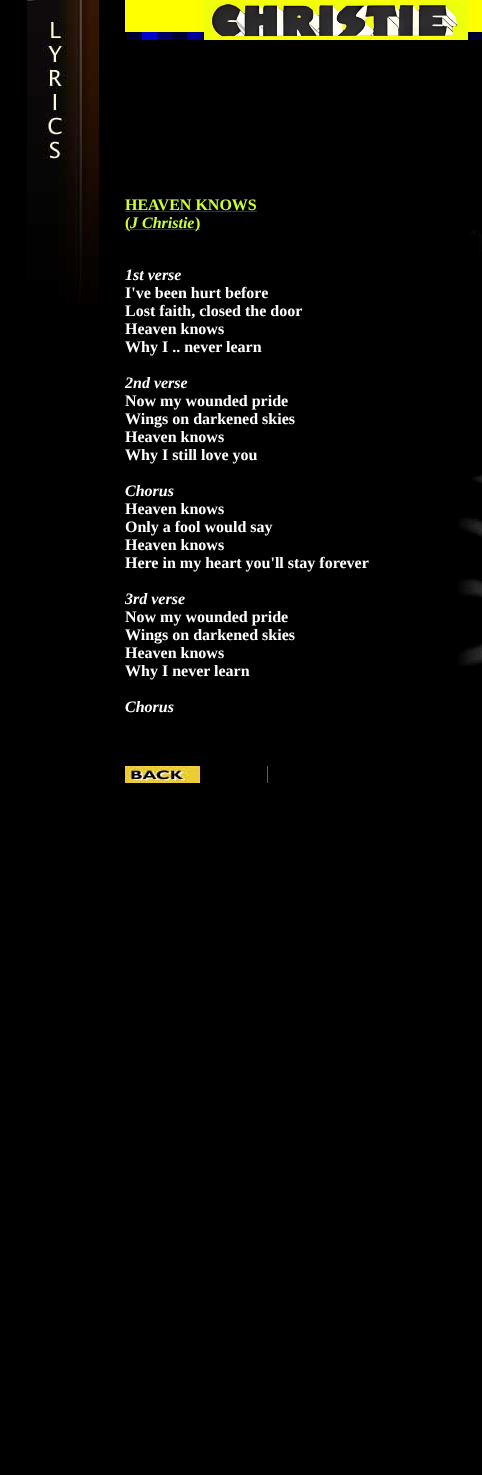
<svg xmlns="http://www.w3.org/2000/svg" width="482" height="1475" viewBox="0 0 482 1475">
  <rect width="100%" height="100%" fill="rgb(0,0,0)"/>
  <image x="27" y="0" width="72" height="304" href="pic1.png"/>
  <rect x="125" y="0" width="357" height="32" fill="rgb(255,255,0)"/>
  <image x="125" y="32" width="79" height="8" href="pic2.png"/>
  <image x="204" y="0" width="264" height="40" href="pic3.png"/>
  <image x="468" y="32" width="14" height="8" href="pic4.png"/>
  <text x="125" y="210" font-family="Liberation Serif" font-size="16" font-weight="bold" fill="rgb(204,255,51)">HEAVEN KNOWS</text>
  <rect x="125" y="211" width="132" height="1" fill="rgb(0,64,128)"/>
  <rect x="125" y="229" width="75" height="1" fill="rgb(0,64,128)"/>
  <text x="125" y="228" font-family="Liberation Serif" font-size="16" font-weight="bold" fill="rgb(204,255,51)">(</text>
  <text x="130" y="228" font-family="Liberation Serif" font-size="16" font-weight="bold" font-style="italic" fill="rgb(204,255,51)">J Christie</text>
  <text x="195" y="228" font-family="Liberation Serif" font-size="16" font-weight="bold" fill="rgb(204,255,51)">)</text>
  <image x="458" y="230" width="24" height="436" href="pic5.png"/>
  <text x="125" y="280" font-family="Liberation Serif" font-size="16" font-weight="bold" font-style="italic" fill="rgb(255,255,255)">1st verse</text>
  <g font-family="Liberation Serif" font-size="16" font-weight="bold" fill="rgb(255,255,255)">
    <text>
      <tspan x="125" y="298">I've been hurt before</tspan>
      <tspan x="125" y="316">Lost faith, closed the door</tspan>
      <tspan x="125" y="334">Heaven knows</tspan>
      <tspan x="125" y="352">Why I .. never learn</tspan>
    </text>
  </g>
  <text x="125" y="388" font-family="Liberation Serif" font-size="16" font-weight="bold" font-style="italic" fill="rgb(255,255,255)">2nd verse</text>
  <g font-family="Liberation Serif" font-size="16" font-weight="bold" fill="rgb(255,255,255)">
    <text>
      <tspan x="125" y="406">Now my wounded pride</tspan>
      <tspan x="125" y="424">Wings on darkened skies</tspan>
      <tspan x="125" y="442">Heaven knows</tspan>
      <tspan x="125" y="460">Why I still love you</tspan>
    </text>
  </g>
  <text x="125" y="496" font-family="Liberation Serif" font-size="16" font-weight="bold" font-style="italic" fill="rgb(255,255,255)">Chorus</text>
  <g font-family="Liberation Serif" font-size="16" font-weight="bold" fill="rgb(255,255,255)">
    <text>
      <tspan x="125" y="514">Heaven knows</tspan>
      <tspan x="125" y="532">Only a fool would say</tspan>
      <tspan x="125" y="550">Heaven knows</tspan>
      <tspan x="125" y="568">Here in my heart you'll stay forever</tspan>
    </text>
  </g>
  <text x="125" y="604" font-family="Liberation Serif" font-size="16" font-weight="bold" font-style="italic" fill="rgb(255,255,255)">3rd verse</text>
  <g font-family="Liberation Serif" font-size="16" font-weight="bold" fill="rgb(255,255,255)">
    <text>
      <tspan x="125" y="622">Now my wounded pride</tspan>
      <tspan x="125" y="640">Wings on darkened skies</tspan>
      <tspan x="125" y="658">Heaven knows</tspan>
      <tspan x="125" y="676">Why I never learn</tspan>
    </text>
  </g>
  <text x="125" y="712" font-family="Liberation Serif" font-size="16" font-weight="bold" font-style="italic" fill="rgb(255,255,255)">Chorus</text>
  <image x="125" y="766" width="143" height="17" href="pic6.png"/>
</svg>
